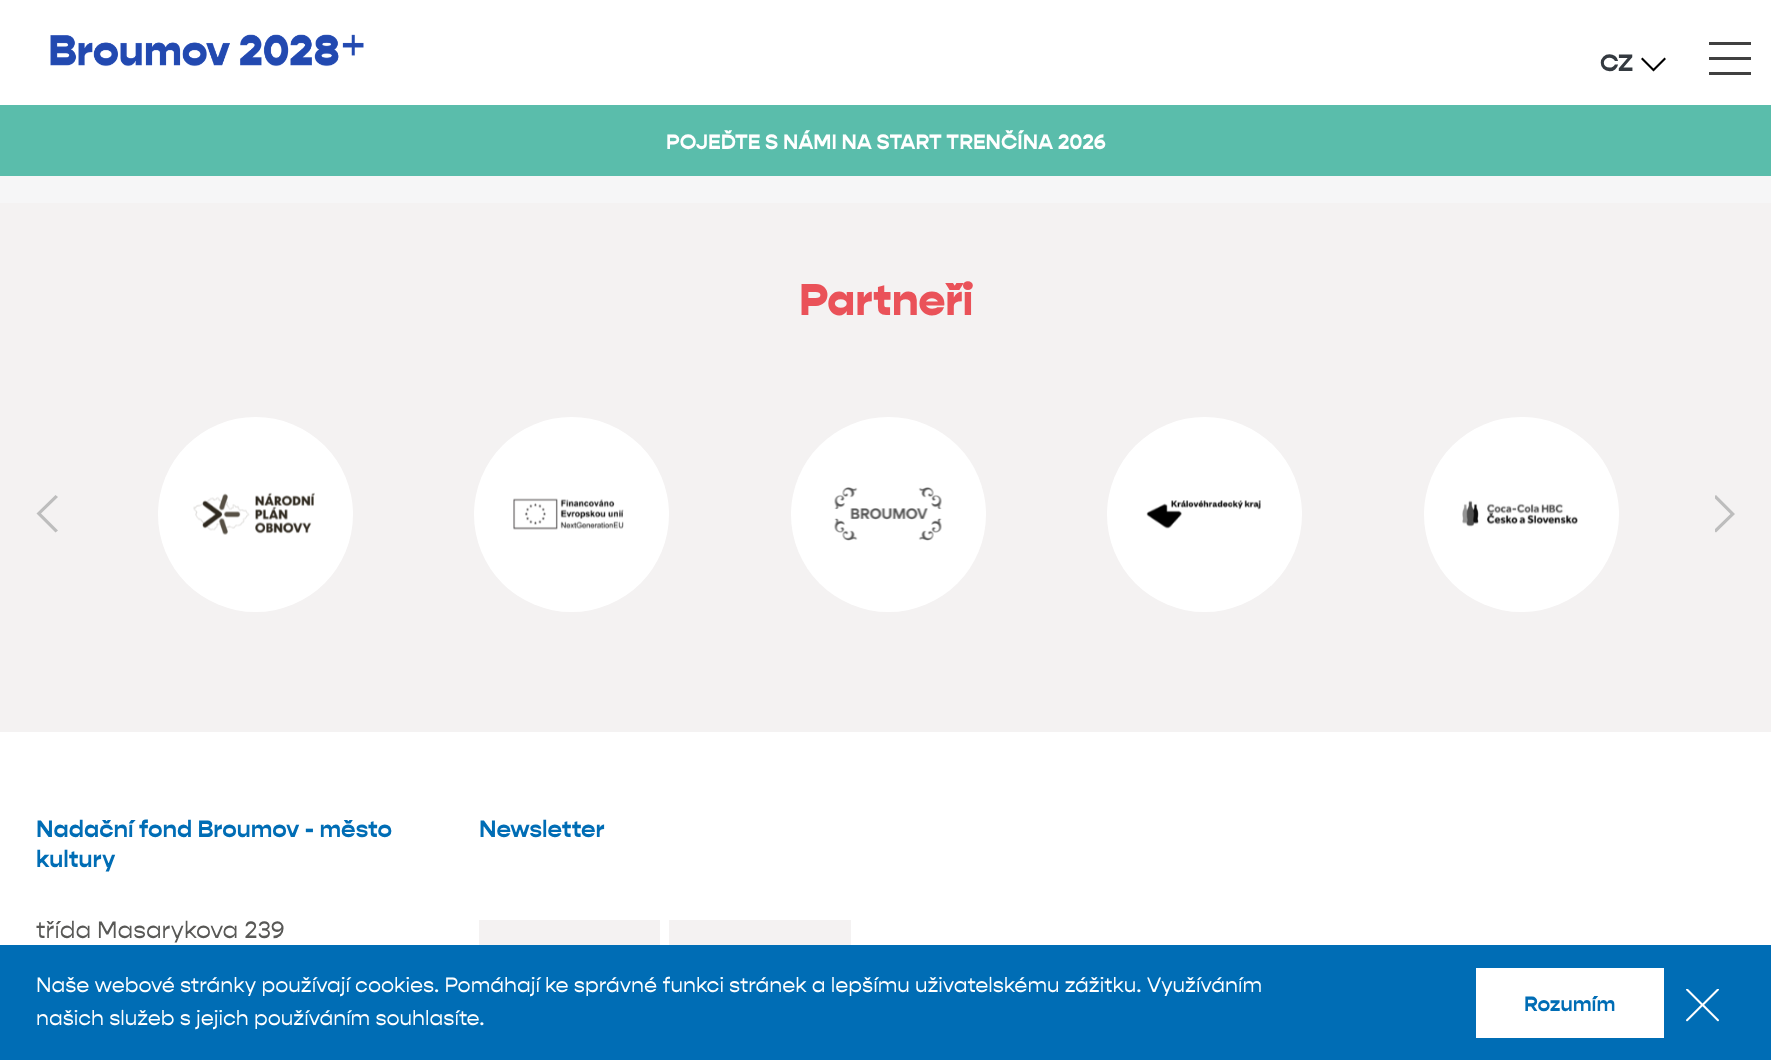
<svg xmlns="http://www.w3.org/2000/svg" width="1771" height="1060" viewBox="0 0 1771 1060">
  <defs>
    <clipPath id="clip1"><rect x="1715" y="495" width="22" height="38"/></clipPath>
  </defs>
  <rect width="100%" height="100%" fill="rgb(255,255,255)"/>
  <image x="50" y="34" width="314" height="33" href="pic1.png"/>
  <text x="1600" y="71" font-family="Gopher" font-size="24" font-weight="bold" fill="rgb(52,58,64)">CZ</text>
  <path d="M1641 59L1653.5 71.5L1666 59L1664.5 57.5L1653.5 68.5L1642.5 57.5Z" fill="rgb(0,0,0)"/>
  <rect x="0" y="105" width="1771" height="71" fill="rgb(90,189,171)"/>
  <text x="666" y="149" font-family="Gopher" font-size="21" font-weight="bold" fill="rgb(255,255,255)">POJEĎTE S NÁMI NA START TRENČÍNA 2026</text>
  <rect x="1709" y="57" width="42" height="3" fill="rgb(64,64,64)"/>
  <rect x="1709" y="42" width="42" height="3" fill="rgb(64,64,64)"/>
  <rect x="1709" y="72" width="42" height="3" fill="rgb(64,64,64)"/>
  <rect x="0" y="176" width="1771" height="27" fill="rgb(246,246,247)"/>
  <rect x="0" y="203" width="1771" height="529" fill="rgb(244,242,242)"/>
  <text x="799" y="315" font-family="Gopher" font-size="45" font-weight="900" fill="rgb(234,82,89)">Partneři</text>
  <path d="M55.5 532.5L36.5 513.5L55.5 495L58 497L41 513.5L58 530.5Z" fill="rgb(189,189,189)"/>
  <circle cx="255.5" cy="514.5" r="97.5" fill="rgb(255,255,255)"/>
  <image x="193" y="492" width="122" height="43" href="pic2.png"/>
  <circle cx="571.5" cy="514.5" r="97.5" fill="rgb(255,255,255)"/>
  <image x="513" y="498" width="111" height="32" href="pic3.png"/>
  <circle cx="888.5" cy="514.5" r="97.5" fill="rgb(255,255,255)"/>
  <image x="834" y="487" width="108" height="54" href="pic4.png"/>
  <circle cx="1204.5" cy="514.5" r="97.5" fill="rgb(255,255,255)"/>
  <image x="1146" y="500" width="115" height="29" href="pic5.png"/>
  <circle cx="1521.5" cy="514.5" r="97.5" fill="rgb(255,255,255)"/>
  <image x="1462" y="500" width="116" height="27" href="pic6.png"/>
  <g clip-path="url(#clip1)">
    <path d="M1716 495L1735 514L1716 532.5L1713.5 530.5L1730.5 514L1713.5 497Z" fill="rgb(189,189,189)"/>
  </g>
  <g font-family="Gopher" font-size="24" font-weight="bold" fill="rgb(0,109,181)">
    <text>
      <tspan x="36" y="837">Nadační fond Broumov - město</tspan>
      <tspan x="36" y="867">kultury</tspan>
    </text>
  </g>
  <text x="36" y="938" font-family="Gopher" font-size="24" fill="rgb(88,88,86)">třída Masarykova 239</text>
  <text x="479" y="837" font-family="Gopher" font-size="24" font-weight="bold" fill="rgb(0,109,181)">Newsletter</text>
  <rect x="479" y="920" width="181" height="25" fill="rgb(244,242,242)"/>
  <rect x="669" y="920" width="182" height="25" fill="rgb(244,242,242)"/>
  <rect x="0" y="945" width="1771" height="115" fill="rgb(0,109,181)"/>
  <g font-family="Gopher" font-size="21" fill="rgb(255,255,255)">
    <text>
      <tspan x="36" y="992">Naše webové stránky používají cookies. Pomáhají ke správné funkci stránek a lepšímu uživatelskému zážitku. Využíváním</tspan>
      <tspan x="36" y="1025">našich služeb s jejich používáním souhlasíte.</tspan>
    </text>
  </g>
  <rect x="1476" y="968" width="188" height="70" fill="rgb(255,255,255)"/>
  <text x="1524" y="1011" font-family="Gopher" font-size="21" font-weight="bold" fill="rgb(0,109,181)">Rozumím</text>
  <image x="1686" y="989" width="33" height="33" href="pic7.png"/>
</svg>
